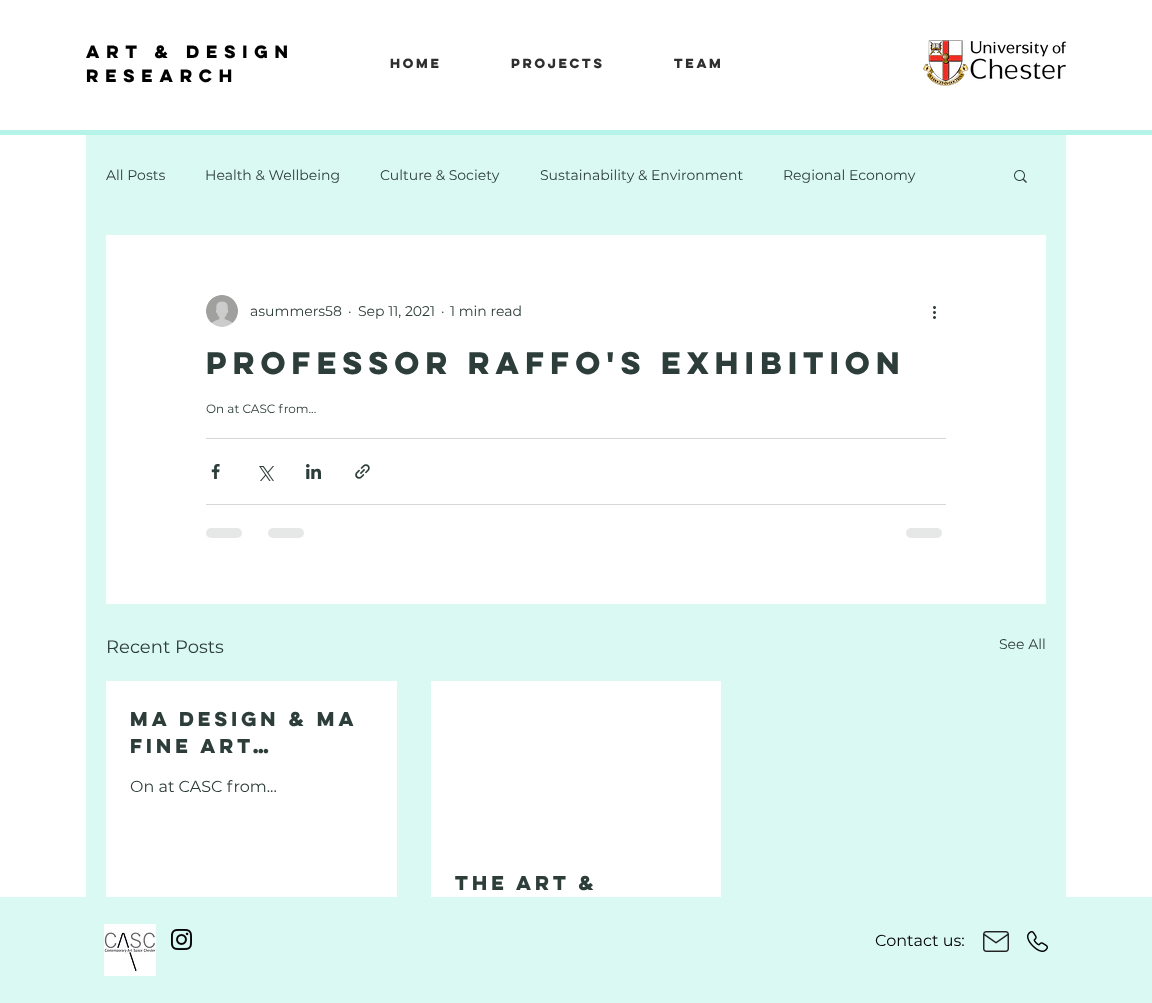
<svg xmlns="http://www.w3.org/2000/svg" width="1152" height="1003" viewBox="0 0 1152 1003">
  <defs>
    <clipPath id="clip1"><rect x="455" y="869" width="242" height="54"/></clipPath>
  </defs>
  <rect width="100%" height="100%" fill="rgb(255,255,255)"/>
  <g font-family="'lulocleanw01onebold'" font-size="16" font-weight="bold" letter-spacing="3.25" fill="rgb(0,0,0)">
    <text>
      <tspan x="86" y="58">ART &amp; DESIGN</tspan>
      <tspan x="86" y="82">RESEARCH</tspan>
    </text>
  </g>
  <g font-family="'lulocleanw01onebold'" font-size="12" font-weight="bold" fill="rgb(47,46,46)">
    <text x="390" y="68">HOME</text>
    <text x="511" y="68">PROJECTS</text>
    <text x="674" y="68">TEAM</text>
  </g>
  <image x="923" y="40" width="144" height="46" href="pic1.png"/>
  <rect x="0" y="130" width="1152" height="5" fill="rgb(182,243,232)"/>
  <rect x="86" y="135" width="980" height="762" fill="rgb(218,249,243)"/>
  <g font-family="Montserrat" font-size="14" fill="rgb(45,61,58)">
    <text x="106" y="180">All Posts</text>
    <text x="205" y="180">Health &amp; Wellbeing</text>
    <text x="380" y="180">Culture &amp; Society</text>
    <text x="540" y="180">Sustainability &amp; Environment</text>
    <text x="783" y="180">Regional Economy</text>
  </g>
  <image x="1014" y="170" width="13" height="13" href="pic2.png"/>
  <rect x="106" y="235" width="940" height="369" fill="rgb(255,255,255)"/>
  <image x="206" y="295" width="32" height="32" href="pic3.png"/>
  <g font-family="Montserrat" font-size="14" fill="rgb(45,61,58)">
    <text x="250" y="316">asummers58</text>
    <text x="348" y="316">·</text>
    <text x="358" y="316">Sep 11, 2021</text>
    <text x="441" y="316">·</text>
    <text x="450" y="316">1 min read</text>
  </g>
  <image x="933" y="306" width="3" height="13" href="pic4.png"/>
  <text x="206" y="374" font-family="'lulocleanw01onebold'" font-size="28" font-weight="bold" fill="rgb(45,61,58)">Professor Raffo's exhibition</text>
  <text x="206" y="413" font-family="Montserrat" font-size="12" fill="rgb(45,61,58)">On at CASC from...</text>
  <rect x="206" y="438" width="740" height="1" fill="rgb(213,216,216)"/>
  <image x="211" y="464" width="9" height="15" href="pic5.png"/>
  <image x="259" y="466" width="15" height="15" href="pic6.png"/>
  <image x="306" y="464" width="15" height="15" href="pic7.png"/>
  <image x="355" y="464" width="15" height="15" href="pic8.png"/>
  <rect x="206" y="504" width="740" height="1" fill="rgb(213,216,216)"/>
  <rect x="206" y="528" width="36" height="10" rx="5" fill="rgb(230,232,231)"/>
  <rect x="268" y="528" width="36" height="10" rx="5" fill="rgb(230,232,231)"/>
  <rect x="906" y="528" width="36" height="10" rx="5" fill="rgb(230,232,231)"/>
  <text x="106" y="653" font-family="Montserrat" font-size="18" fill="rgb(45,61,58)">Recent Posts</text>
  <text x="999" y="649" font-family="Montserrat" font-size="14" fill="rgb(45,61,58)">See All</text>
  <rect x="106" y="681" width="291" height="216" fill="rgb(255,255,255)"/>
  <g font-family="'lulocleanw01onebold'" font-size="18" font-weight="bold" fill="rgb(45,61,58)">
    <text>
      <tspan x="130" y="726">MA Design &amp; MA</tspan>
      <tspan x="130" y="753">Fine ART…</tspan>
    </text>
  </g>
  <text x="130" y="792" font-family="Montserrat" font-size="16" fill="rgb(45,61,58)">On at CASC from...</text>
  <rect x="431" y="681" width="290" height="216" fill="rgb(255,255,255)"/>
  <g clip-path="url(#clip1)">
    <text x="455" y="890" font-family="'lulocleanw01onebold'" font-size="18" font-weight="bold" fill="rgb(45,61,58)">The Art &amp;</text>
  </g>
  <rect x="0" y="897" width="1152" height="106" fill="rgb(218,249,243)"/>
  <image x="104" y="924" width="52" height="52" href="pic9.png"/>
  <image x="171" y="929" width="21" height="21" href="pic10.png"/>
  <text x="875" y="946" font-family="Montserrat" font-size="16" fill="rgb(0,0,0)">Contact us:</text>
  <image x="983" y="931" width="26" height="21" href="pic11.png"/>
  <image x="1027" y="931" width="21" height="21" href="pic12.png"/>
</svg>
